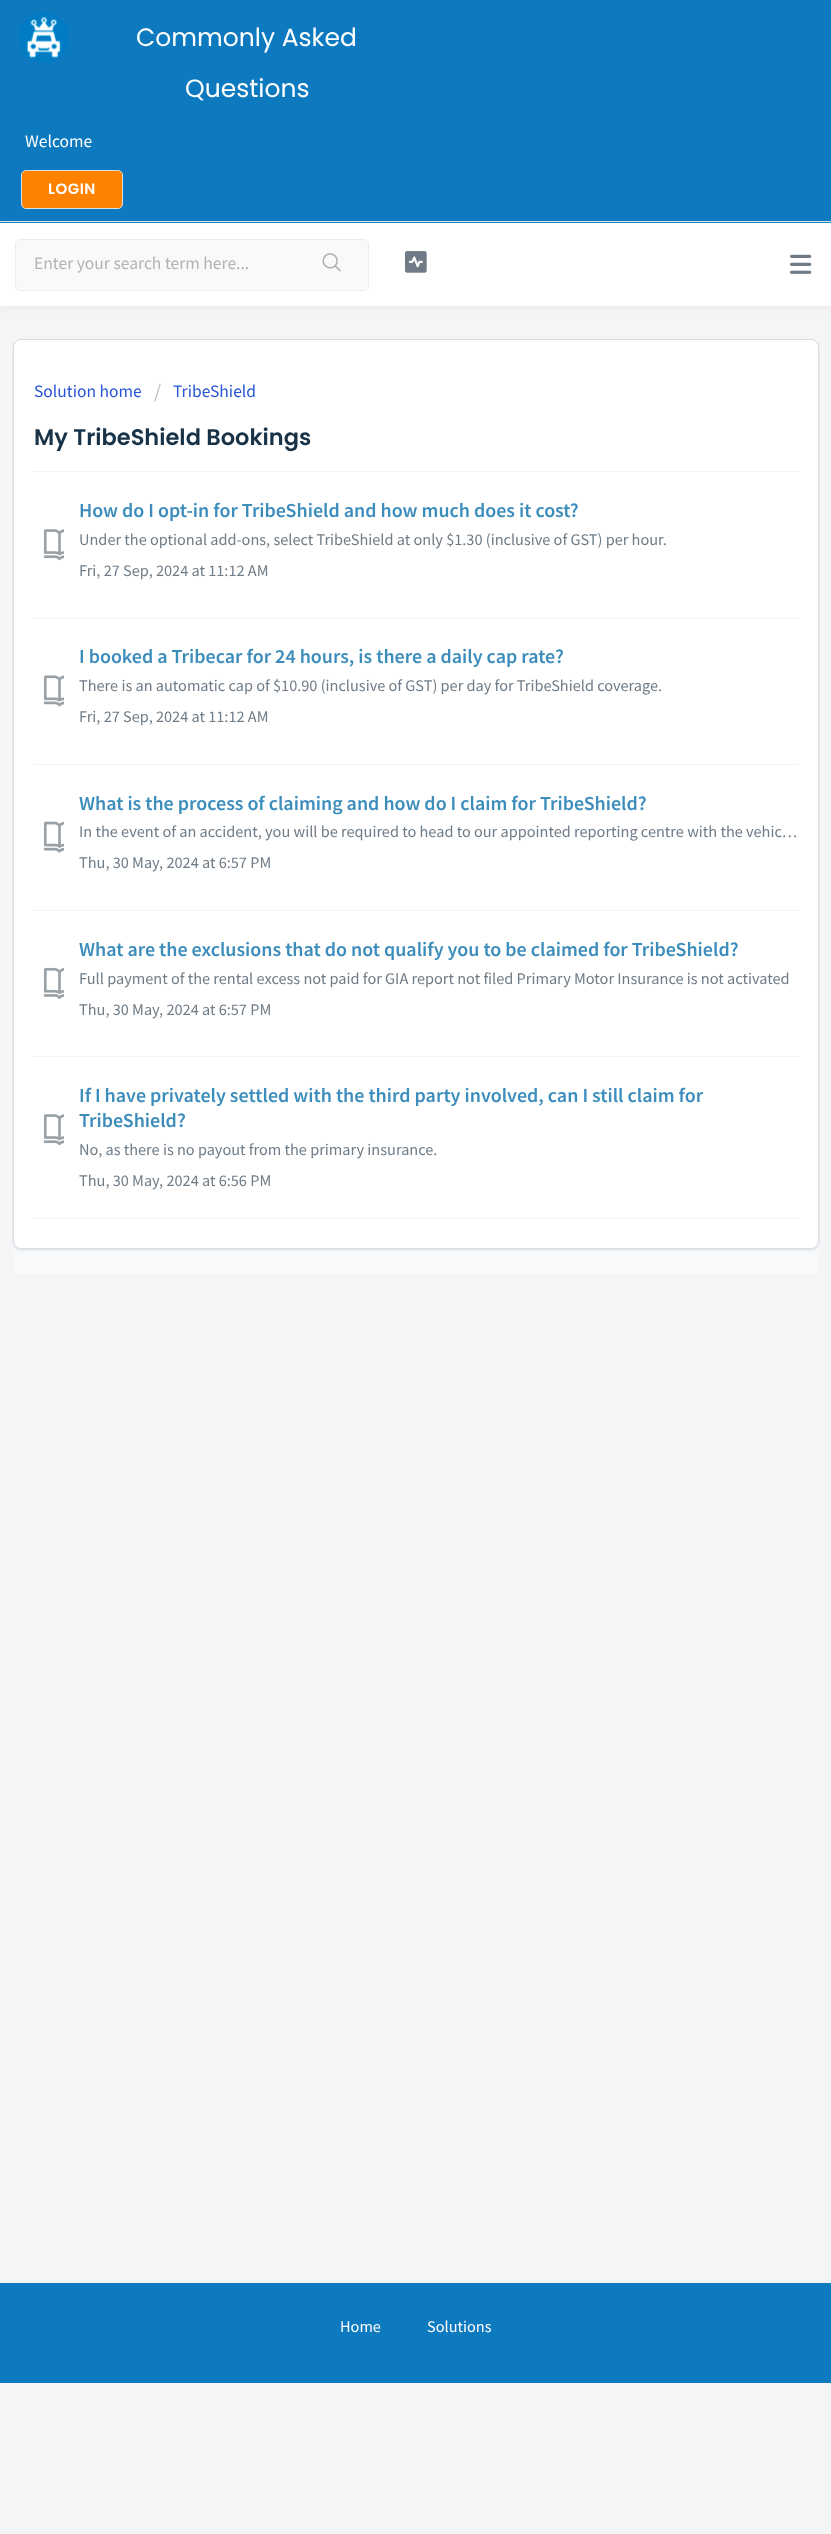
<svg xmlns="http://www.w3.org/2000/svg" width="831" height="2534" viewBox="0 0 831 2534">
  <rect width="100%" height="100%" fill="rgb(243,245,247)"/>
  <rect x="0" y="0" width="831" height="223" fill="rgb(13,122,191)"/>
  <rect x="0" y="221" width="831" height="1" fill="rgb(218,223,227)"/>
  <image x="19" y="12" width="50" height="51" href="pic1.png"/>
  <g font-family="Poppins" font-size="25" fill="rgb(255,255,255)">
    <text x="136" y="46">Commonly Asked</text>
    <text x="185" y="97">Questions</text>
  </g>
  <text x="25" y="147" font-family="Source Sans Pro" font-size="17.5" fill="rgb(255,255,255)">Welcome</text>
  <rect x="21.5" y="170.5" width="101" height="38" rx="4.5" fill="rgb(255,129,0)" stroke="rgb(218,223,227)"/>
  <text x="48" y="194" font-family="Poppins" font-size="15" font-weight="600" letter-spacing="0.5" fill="rgb(255,255,255)">LOGIN</text>
  <rect x="0" y="226" width="831" height="84" fill="rgb(238,238,238)" filter="blur(2.5px)"/>
  <rect x="0" y="223" width="831" height="83" fill="rgb(255,255,255)"/>
  <image x="790" y="254" width="22" height="20" href="pic2.png"/>
  <rect x="15.5" y="239.5" width="353" height="51" rx="4.5" fill="rgb(248,249,250)" stroke="rgb(235,238,240)"/>
  <text x="34" y="269" font-family="Source Sans Pro" font-size="17.5" fill="rgb(178,178,178)">Enter your search term here...</text>
  <rect x="298" y="240" width="70" height="50" rx="2.5" fill="rgb(248,249,250)"/>
  <image x="322" y="253" width="19" height="19" href="pic3.png"/>
  <image x="405" y="251" width="22" height="22" href="pic4.png"/>
  <rect x="13" y="339" width="806" height="935" fill="rgb(248,249,250)"/>
  <rect x="13" y="340" width="806" height="910" rx="8" fill="rgba(63,63,68,0.15)" filter="blur(1px)"/>
  <rect x="13.5" y="339.5" width="805" height="909" rx="7.5" fill="rgb(255,255,255)" stroke="rgb(218,223,227)"/>
  <text x="34" y="397" font-family="Source Sans Pro" font-size="17.5" fill="rgb(39,83,215)">Solution home</text>
  <text x="154" y="398" font-family="Source Sans Pro" font-size="20" fill="rgb(187,187,187)">/</text>
  <text x="173" y="397" font-family="Source Sans Pro" font-size="17.5" fill="rgb(39,83,215)">TribeShield</text>
  <text x="34" y="445" font-family="Poppins" font-size="22.5" font-weight="600" fill="rgb(24,50,71)">My TribeShield Bookings</text>
  <rect x="34" y="1218" width="764" height="1" fill="rgb(243,243,243)"/>
  <rect x="34" y="471" width="764" height="1" fill="rgb(243,243,243)"/>
  <text x="79" y="517" font-family="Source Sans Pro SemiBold" font-size="20" font-weight="600" fill="rgb(60,141,188)">How do I opt-in for TribeShield and how much does it cost?</text>
  <image x="43" y="529" width="21" height="32" href="pic5.png"/>
  <g font-family="Source Sans Pro" font-size="16.25" fill="rgb(111,124,135)">
    <text>
      <tspan x="79" y="545">Under the optional add-ons, select TribeShield at only $1.30 (inclusive of GST) per hour.</tspan>
      <tspan x="79" y="576">Fri, 27 Sep, 2024 at 11:12 AM</tspan>
    </text>
  </g>
  <rect x="34" y="618" width="764" height="1" fill="rgb(243,243,243)"/>
  <text x="79" y="663" font-family="Source Sans Pro SemiBold" font-size="20" font-weight="600" fill="rgb(60,141,188)">I booked a Tribecar for 24 hours, is there a daily cap rate?</text>
  <image x="43" y="675" width="21" height="32" href="pic6.png"/>
  <g font-family="Source Sans Pro" font-size="16.25" fill="rgb(111,124,135)">
    <text>
      <tspan x="79" y="691">There is an automatic cap of $10.90 (inclusive of GST) per day for TribeShield coverage.</tspan>
      <tspan x="79" y="722">Fri, 27 Sep, 2024 at 11:12 AM</tspan>
    </text>
  </g>
  <rect x="34" y="764" width="764" height="1" fill="rgb(243,243,243)"/>
  <text x="79" y="810" font-family="Source Sans Pro SemiBold" font-size="20" font-weight="600" fill="rgb(60,141,188)">What is the process of claiming and how do I claim for TribeShield?</text>
  <image x="43" y="821" width="21" height="32" href="pic7.png"/>
  <g font-family="Source Sans Pro" font-size="16.25" fill="rgb(111,124,135)">
    <text>
      <tspan x="79" y="837">In the event of an accident, you will be required to head to our appointed reporting centre with the vehic…</tspan>
      <tspan x="79" y="868">Thu, 30 May, 2024 at 6:57 PM</tspan>
    </text>
  </g>
  <rect x="34" y="910" width="764" height="1" fill="rgb(243,243,243)"/>
  <text x="79" y="956" font-family="Source Sans Pro SemiBold" font-size="20" font-weight="600" fill="rgb(60,141,188)">What are the exclusions that do not qualify you to be claimed for TribeShield?</text>
  <image x="43" y="967" width="21" height="32" href="pic8.png"/>
  <g font-family="Source Sans Pro" font-size="16.25" fill="rgb(111,124,135)">
    <text>
      <tspan x="79" y="984">Full payment of the rental excess not paid for GIA report not filed Primary Motor Insurance is not activated</tspan>
      <tspan x="79" y="1015">Thu, 30 May, 2024 at 6:57 PM</tspan>
    </text>
  </g>
  <rect x="34" y="1056" width="764" height="1" fill="rgb(243,243,243)"/>
  <image x="43" y="1114" width="21" height="32" href="pic5.png"/>
  <g font-family="Source Sans Pro SemiBold" font-size="20" font-weight="600" fill="rgb(60,141,188)">
    <text>
      <tspan x="79" y="1102">If I have privately settled with the third party involved, can I still claim for</tspan>
      <tspan x="79" y="1127">TribeShield?</tspan>
    </text>
  </g>
  <g font-family="Source Sans Pro" font-size="16.25" fill="rgb(111,124,135)">
    <text>
      <tspan x="79" y="1155">No, as there is no payout from the primary insurance.</tspan>
      <tspan x="79" y="1186">Thu, 30 May, 2024 at 6:56 PM</tspan>
    </text>
  </g>
  <rect x="0" y="2283" width="831" height="100" fill="rgb(13,122,191)"/>
  <g font-family="Source Sans Pro" font-size="16.25" fill="rgb(255,255,255)">
    <text x="340" y="2332">Home</text>
    <text x="427" y="2332">Solutions</text>
  </g>
</svg>
